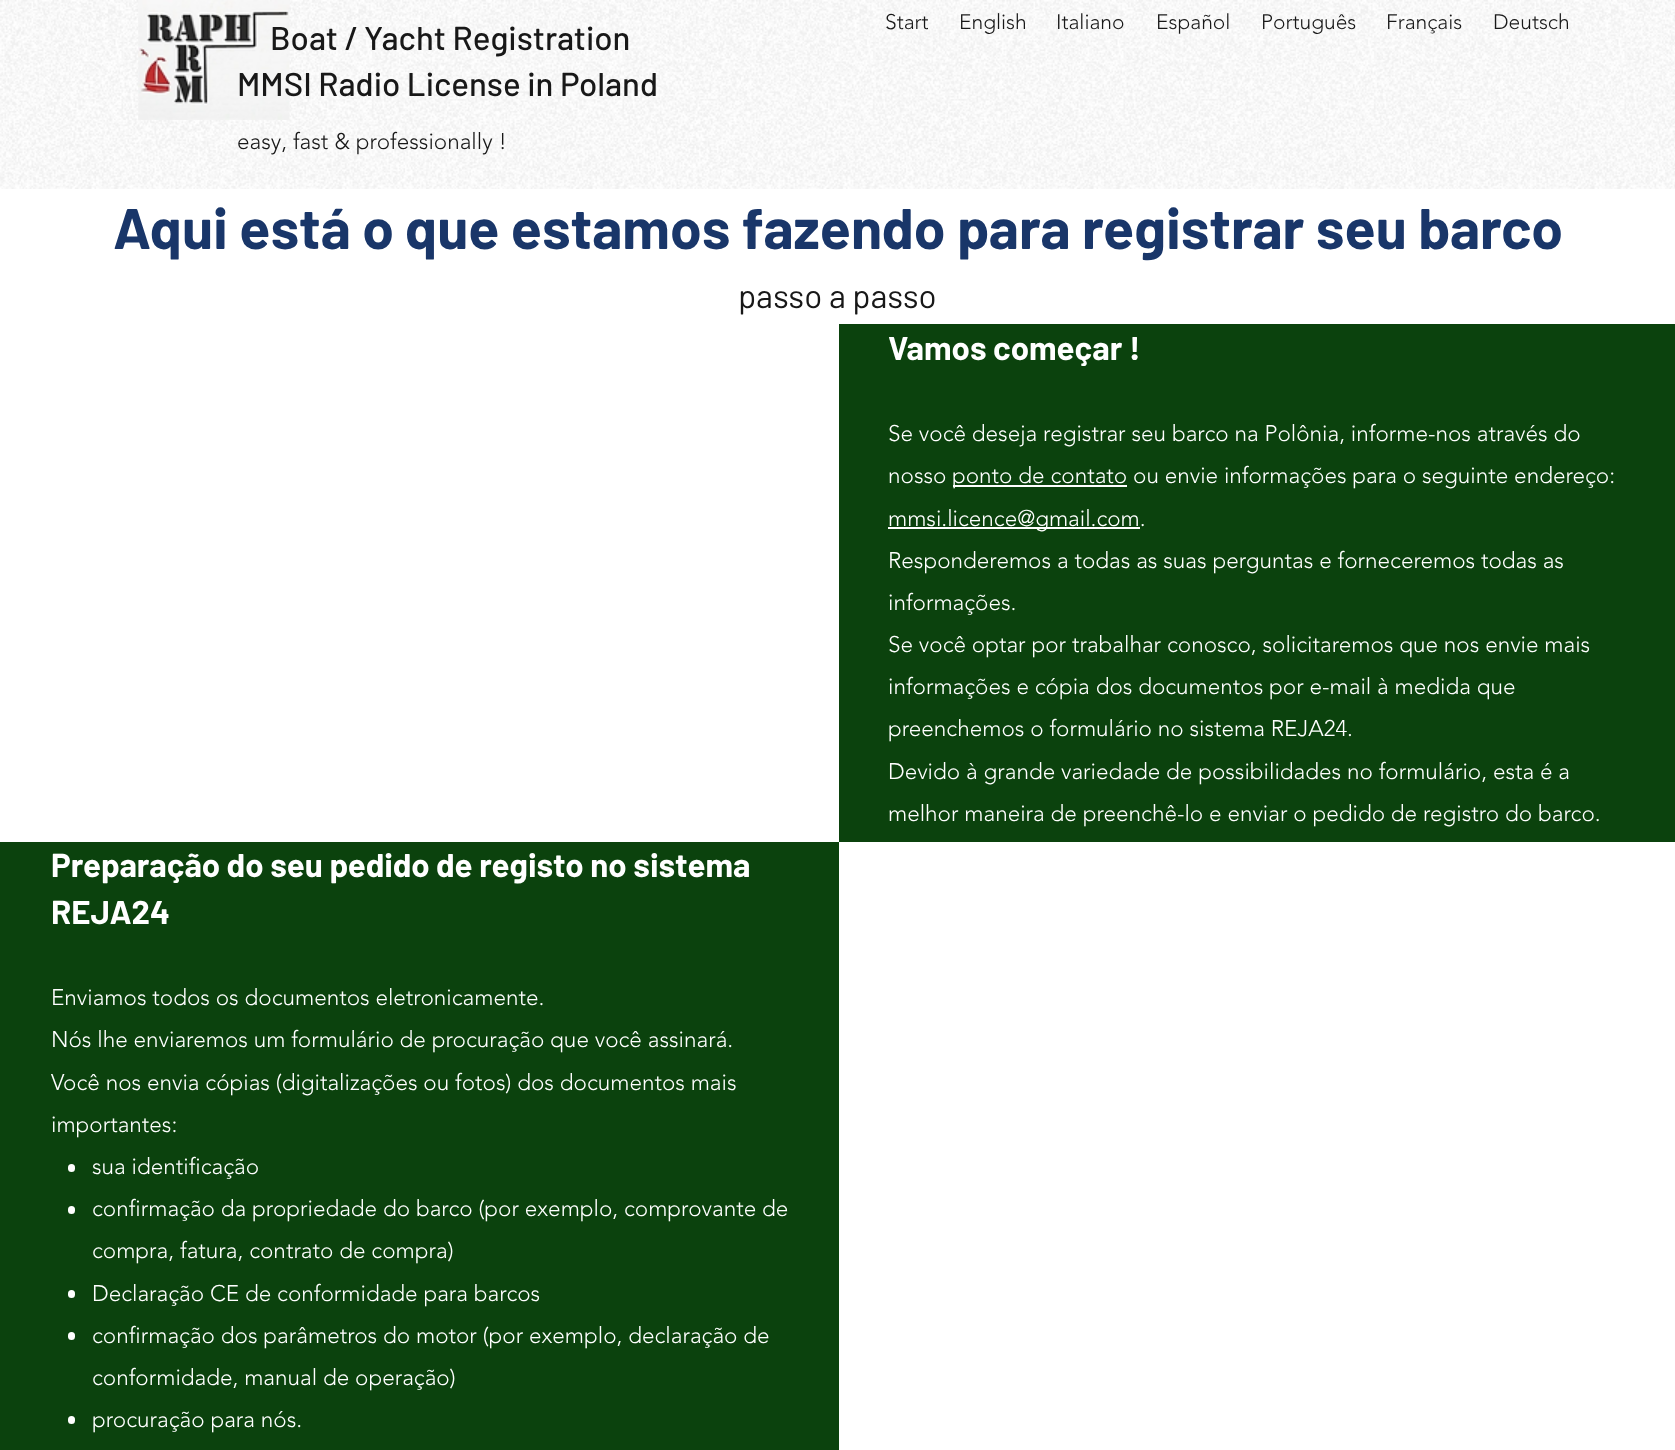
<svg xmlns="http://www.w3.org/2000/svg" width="1675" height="1450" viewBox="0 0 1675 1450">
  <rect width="100%" height="100%" fill="rgb(255,255,255)"/>
  <image x="0" y="0" width="1675" height="189" href="pic1.png"/>
  <image x="138" y="0" width="152" height="120" href="pic2.png"/>
  <g font-family="Barlow" font-size="33" font-weight="500" fill="rgb(24,24,24)">
    <text x="270" y="50">Boat / Yacht Registration</text>
    <text x="237" y="96">MMSI Radio License in Poland</text>
  </g>
  <text x="237" y="149" font-family="'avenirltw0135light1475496'" font-size="22.5" font-weight="300" fill="rgb(24,24,24)">easy, fast &amp; professionally !</text>
  <g font-family="'avenirltw0135light1475496'" font-size="21" font-weight="300" fill="rgb(24,24,24)">
    <text x="885" y="29">Start</text>
    <text x="959" y="29">English</text>
    <text x="1056" y="29">Italiano</text>
    <text x="1156" y="29">Español</text>
    <text x="1261" y="29">Português</text>
    <text x="1386" y="29">Français</text>
    <text x="1493" y="29">Deutsch</text>
  </g>
  <text x="113" y="249" font-family="Barlow" font-size="57" font-weight="bold" fill="rgb(25,54,105)">Aqui está o que estamos fazendo para registrar seu barco</text>
  <text x="738" y="308" font-family="Barlow" font-size="33" fill="rgb(24,24,24)">passo a passo</text>
  <rect x="839" y="324" width="836" height="518" fill="rgb(11,66,13)"/>
  <text x="888" y="360" font-family="Barlow" font-size="33" font-weight="bold" fill="rgb(255,255,255)">Vamos começar !</text>
  <g font-family="'avenirltw0135light1475496'" font-size="22.5" font-weight="300" fill="rgb(255,255,255)">
    <text>
      <tspan x="888" y="441">Se você deseja registrar seu barco na Polônia, informe-nos através do</tspan>
      <tspan x="888" y="483">nosso</tspan>
    </text>
  </g>
  <rect x="953" y="485" width="174" height="2" fill="rgb(255,255,255)"/>
  <text x="952" y="483" font-family="'avenirltw0135light1475496'" font-size="22.5" font-weight="300" fill="rgb(255,255,255)">ponto de contato ou envie informações para o seguinte endereço:</text>
  <rect x="888" y="527" width="252" height="2" fill="rgb(255,255,255)"/>
  <g font-family="'avenirltw0135light1475496'" font-size="22.5" font-weight="300" fill="rgb(255,255,255)">
    <text>
      <tspan x="888" y="526">mmsi.licence@gmail.com.</tspan>
      <tspan x="888" y="568">Responderemos a todas as suas perguntas e forneceremos todas as</tspan>
      <tspan x="888" y="610">informações.</tspan>
      <tspan x="888" y="652">Se você optar por trabalhar conosco, solicitaremos que nos envie mais</tspan>
      <tspan x="888" y="694">informações e cópia dos documentos por e-mail à medida que</tspan>
      <tspan x="888" y="736">preenchemos o formulário no sistema REJA24.</tspan>
      <tspan x="888" y="779">Devido à grande variedade de possibilidades no formulário, esta é a</tspan>
      <tspan x="888" y="821">melhor maneira de preenchê-lo e enviar o pedido de registro do barco.</tspan>
    </text>
  </g>
  <rect x="0" y="842" width="839" height="608" fill="rgb(11,66,13)"/>
  <g font-family="Barlow" font-size="33" font-weight="bold" fill="rgb(255,255,255)">
    <text>
      <tspan x="51" y="877">Preparação do seu pedido de registo no sistema</tspan>
      <tspan x="51" y="924">REJA24</tspan>
    </text>
  </g>
  <g font-family="'avenirltw0135light1475496'" font-size="22.5" font-weight="300" fill="rgb(255,255,255)">
    <text>
      <tspan x="51" y="1005">Enviamos todos os documentos eletronicamente.</tspan>
      <tspan x="51" y="1047">Nós lhe enviaremos um formulário de procuração que você assinará.</tspan>
      <tspan x="51" y="1090">Você nos envia cópias (digitalizações ou fotos) dos documentos mais</tspan>
      <tspan x="51" y="1132">importantes:</tspan>
    </text>
  </g>
  <rect x="68" y="1164" width="7" height="8" rx="3.5" fill="rgb(255,255,255)"/>
  <text x="92" y="1174" font-family="'avenirltw0135light1475496'" font-size="22.5" font-weight="300" fill="rgb(255,255,255)">sua identificação</text>
  <rect x="68" y="1206" width="7" height="8" rx="3.5" fill="rgb(255,255,255)"/>
  <g font-family="'avenirltw0135light1475496'" font-size="22.5" font-weight="300" fill="rgb(255,255,255)">
    <text>
      <tspan x="92" y="1216">confirmação da propriedade do barco (por exemplo, comprovante de</tspan>
      <tspan x="92" y="1258">compra, fatura, contrato de compra)</tspan>
    </text>
  </g>
  <rect x="68" y="1290" width="7" height="8" rx="3.5" fill="rgb(255,255,255)"/>
  <text x="92" y="1301" font-family="'avenirltw0135light1475496'" font-size="22.5" font-weight="300" fill="rgb(255,255,255)">Declaração CE de conformidade para barcos</text>
  <rect x="68" y="1332" width="7" height="8" rx="3.5" fill="rgb(255,255,255)"/>
  <g font-family="'avenirltw0135light1475496'" font-size="22.5" font-weight="300" fill="rgb(255,255,255)">
    <text>
      <tspan x="92" y="1343">confirmação dos parâmetros do motor (por exemplo, declaração de</tspan>
      <tspan x="92" y="1385">conformidade, manual de operação)</tspan>
    </text>
  </g>
  <rect x="68" y="1416" width="7" height="8" rx="3.5" fill="rgb(255,255,255)"/>
  <text x="92" y="1427" font-family="'avenirltw0135light1475496'" font-size="22.5" font-weight="300" fill="rgb(255,255,255)">procuração para nós.</text>
</svg>
